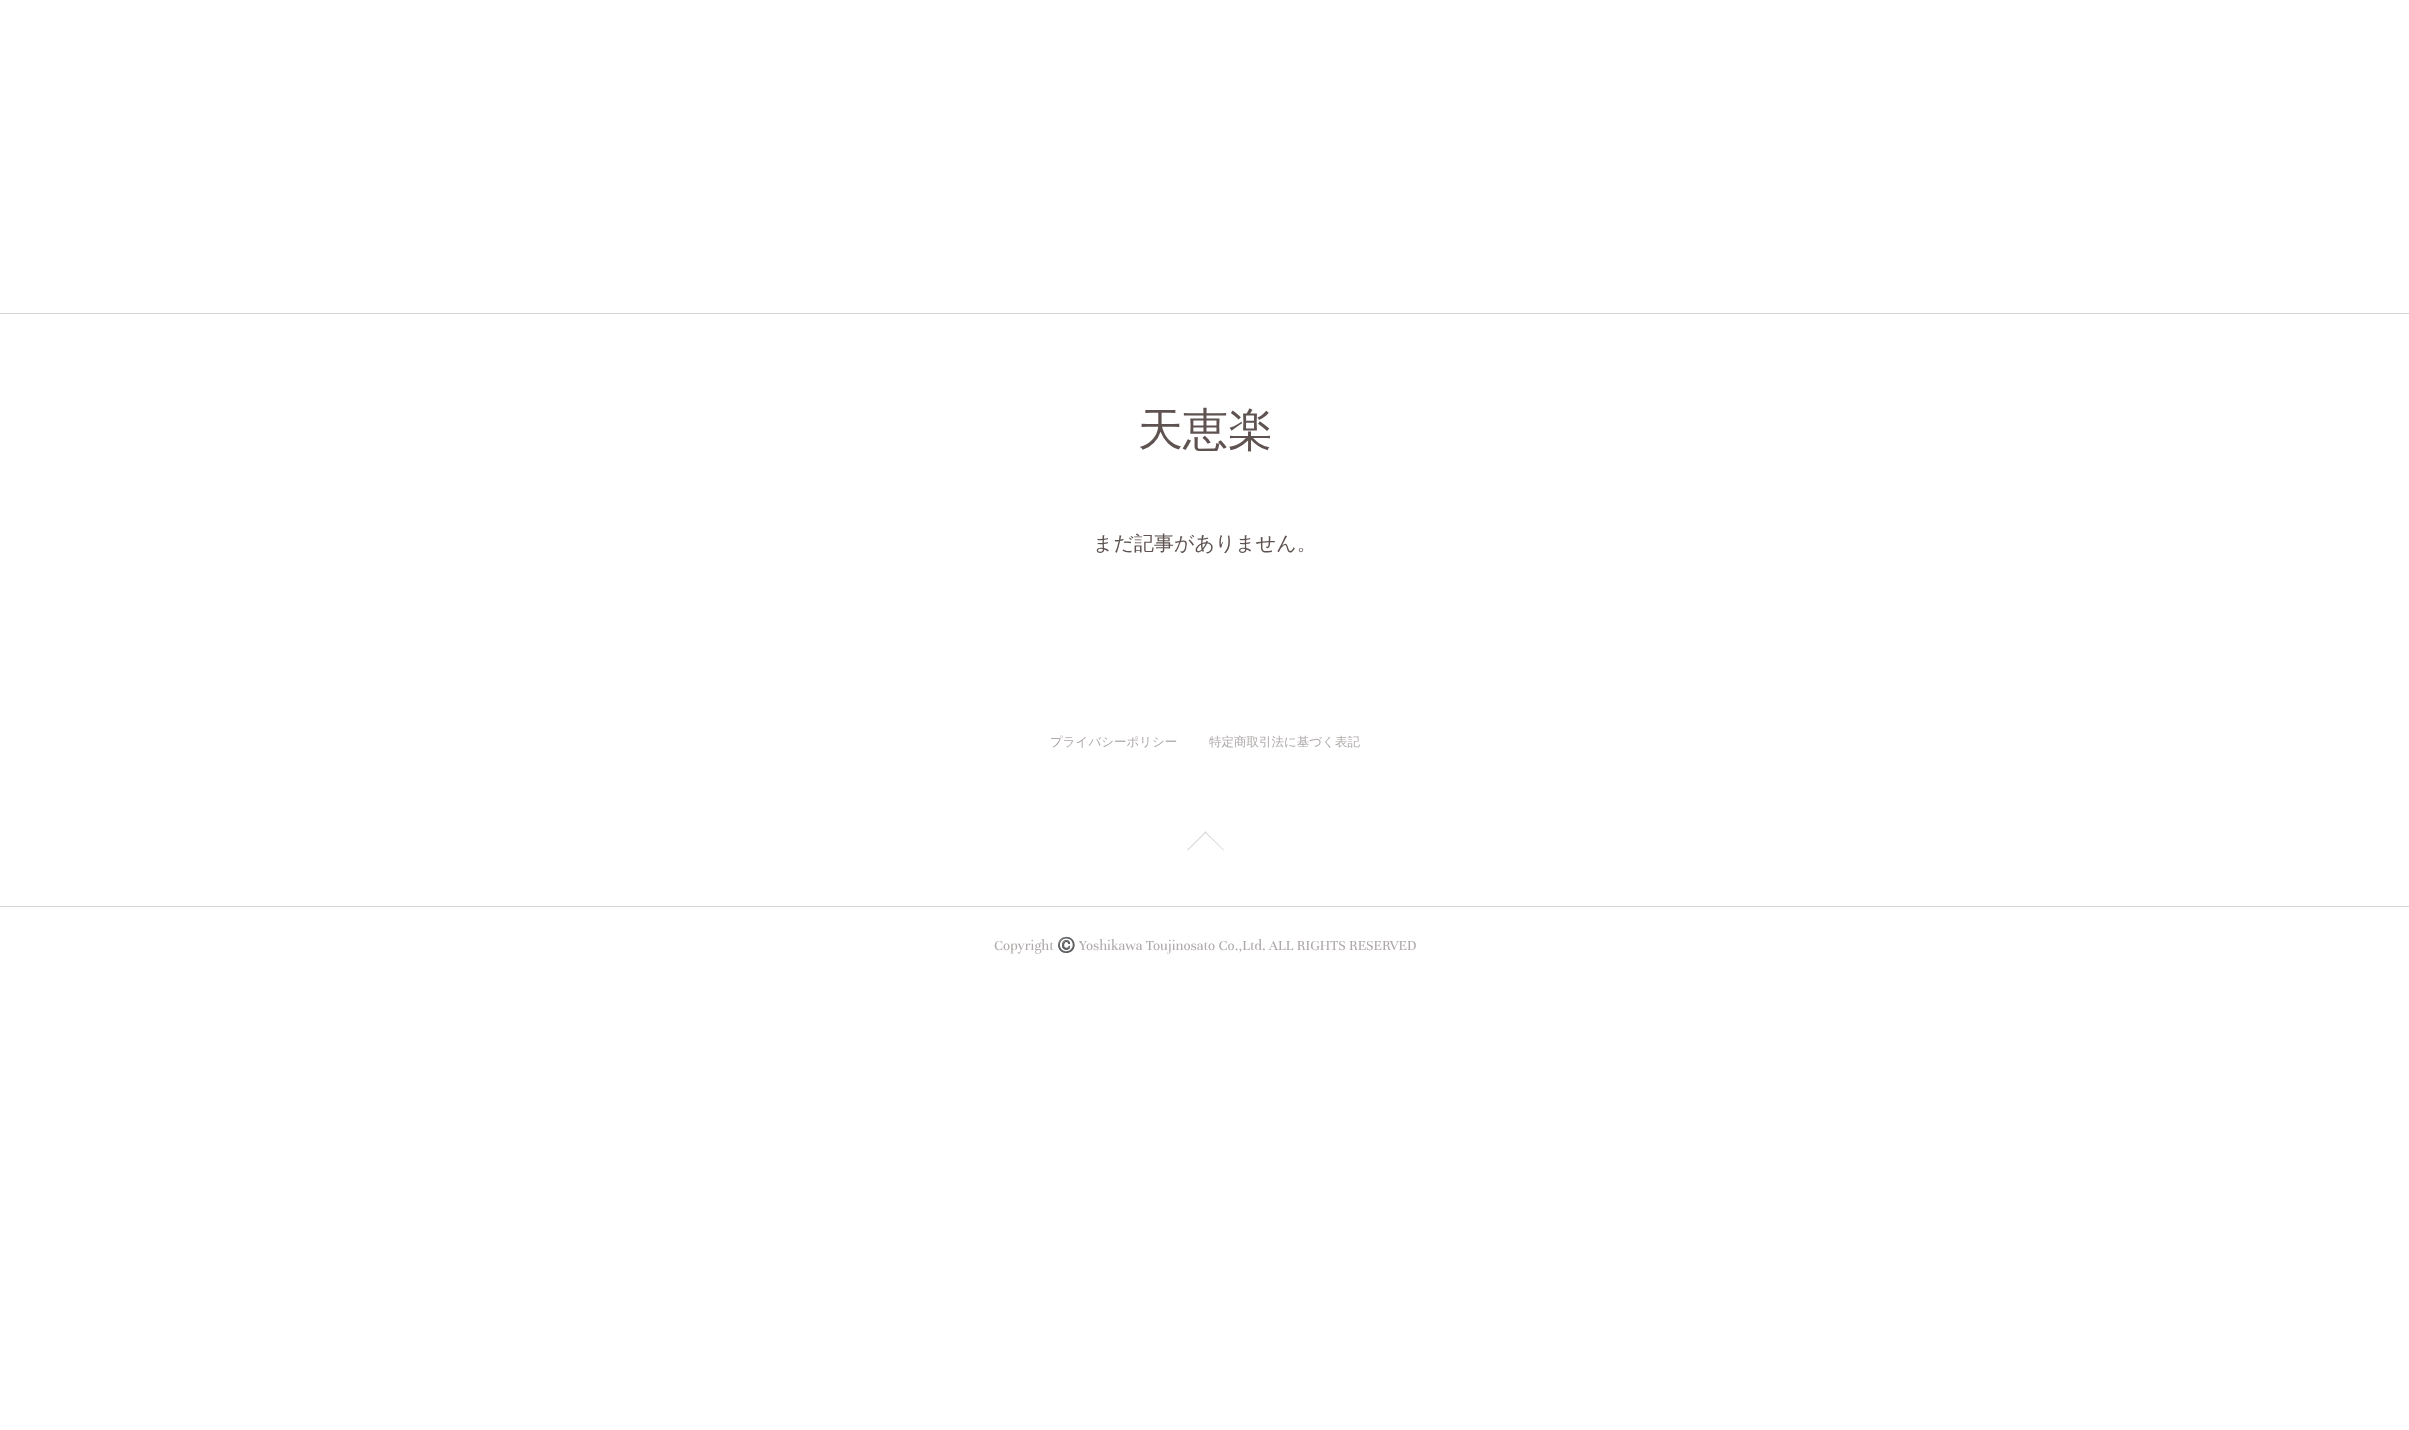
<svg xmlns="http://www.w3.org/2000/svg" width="2409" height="1430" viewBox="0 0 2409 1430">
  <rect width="100%" height="100%" fill="rgb(255,255,255)"/>
  <rect x="0" y="313" width="2409" height="1" fill="rgb(217,213,212)"/>
  <text x="1138" y="445" font-family="WenQuanYi Zen Hei" font-size="45" font-weight="500" fill="rgb(95,83,82)">天恵楽</text>
  <text x="1093" y="550" font-family="WenQuanYi Zen Hei" font-size="20" font-weight="500" fill="rgb(95,83,82)">まだ記事がありません。</text>
  <g font-family="WenQuanYi Zen Hei" font-size="12.5" font-weight="500" fill="rgb(175,169,169)">
    <text x="1050" y="746">プライバシーポリシー</text>
    <text x="1209" y="746">特定商取引法に基づく表記</text>
  </g>
  <path d="M1187 850L1205.5 831.5L1206.5 832L1188 850.5Z" fill="rgb(217,213,212)"/>
  <path d="M1204.5 832L1205.5 831.5L1224 850L1223.5 850.5Z" fill="rgb(217,213,212)"/>
  <rect x="0" y="906" width="2409" height="1" fill="rgb(217,213,212)"/>
  <text x="994" y="950" font-family="Unna" font-size="15" fill="rgb(175,169,169)">Copyright</text>
  <text x="1057" y="950" font-family="Noto Color Emoji" font-size="15" fill="rgb(175,169,169)">©️</text>
  <text x="1079" y="950" font-family="Unna" font-size="15" fill="rgb(175,169,169)">Yoshikawa Toujinosato Co.,Ltd. ALL RIGHTS RESERVED</text>
</svg>
